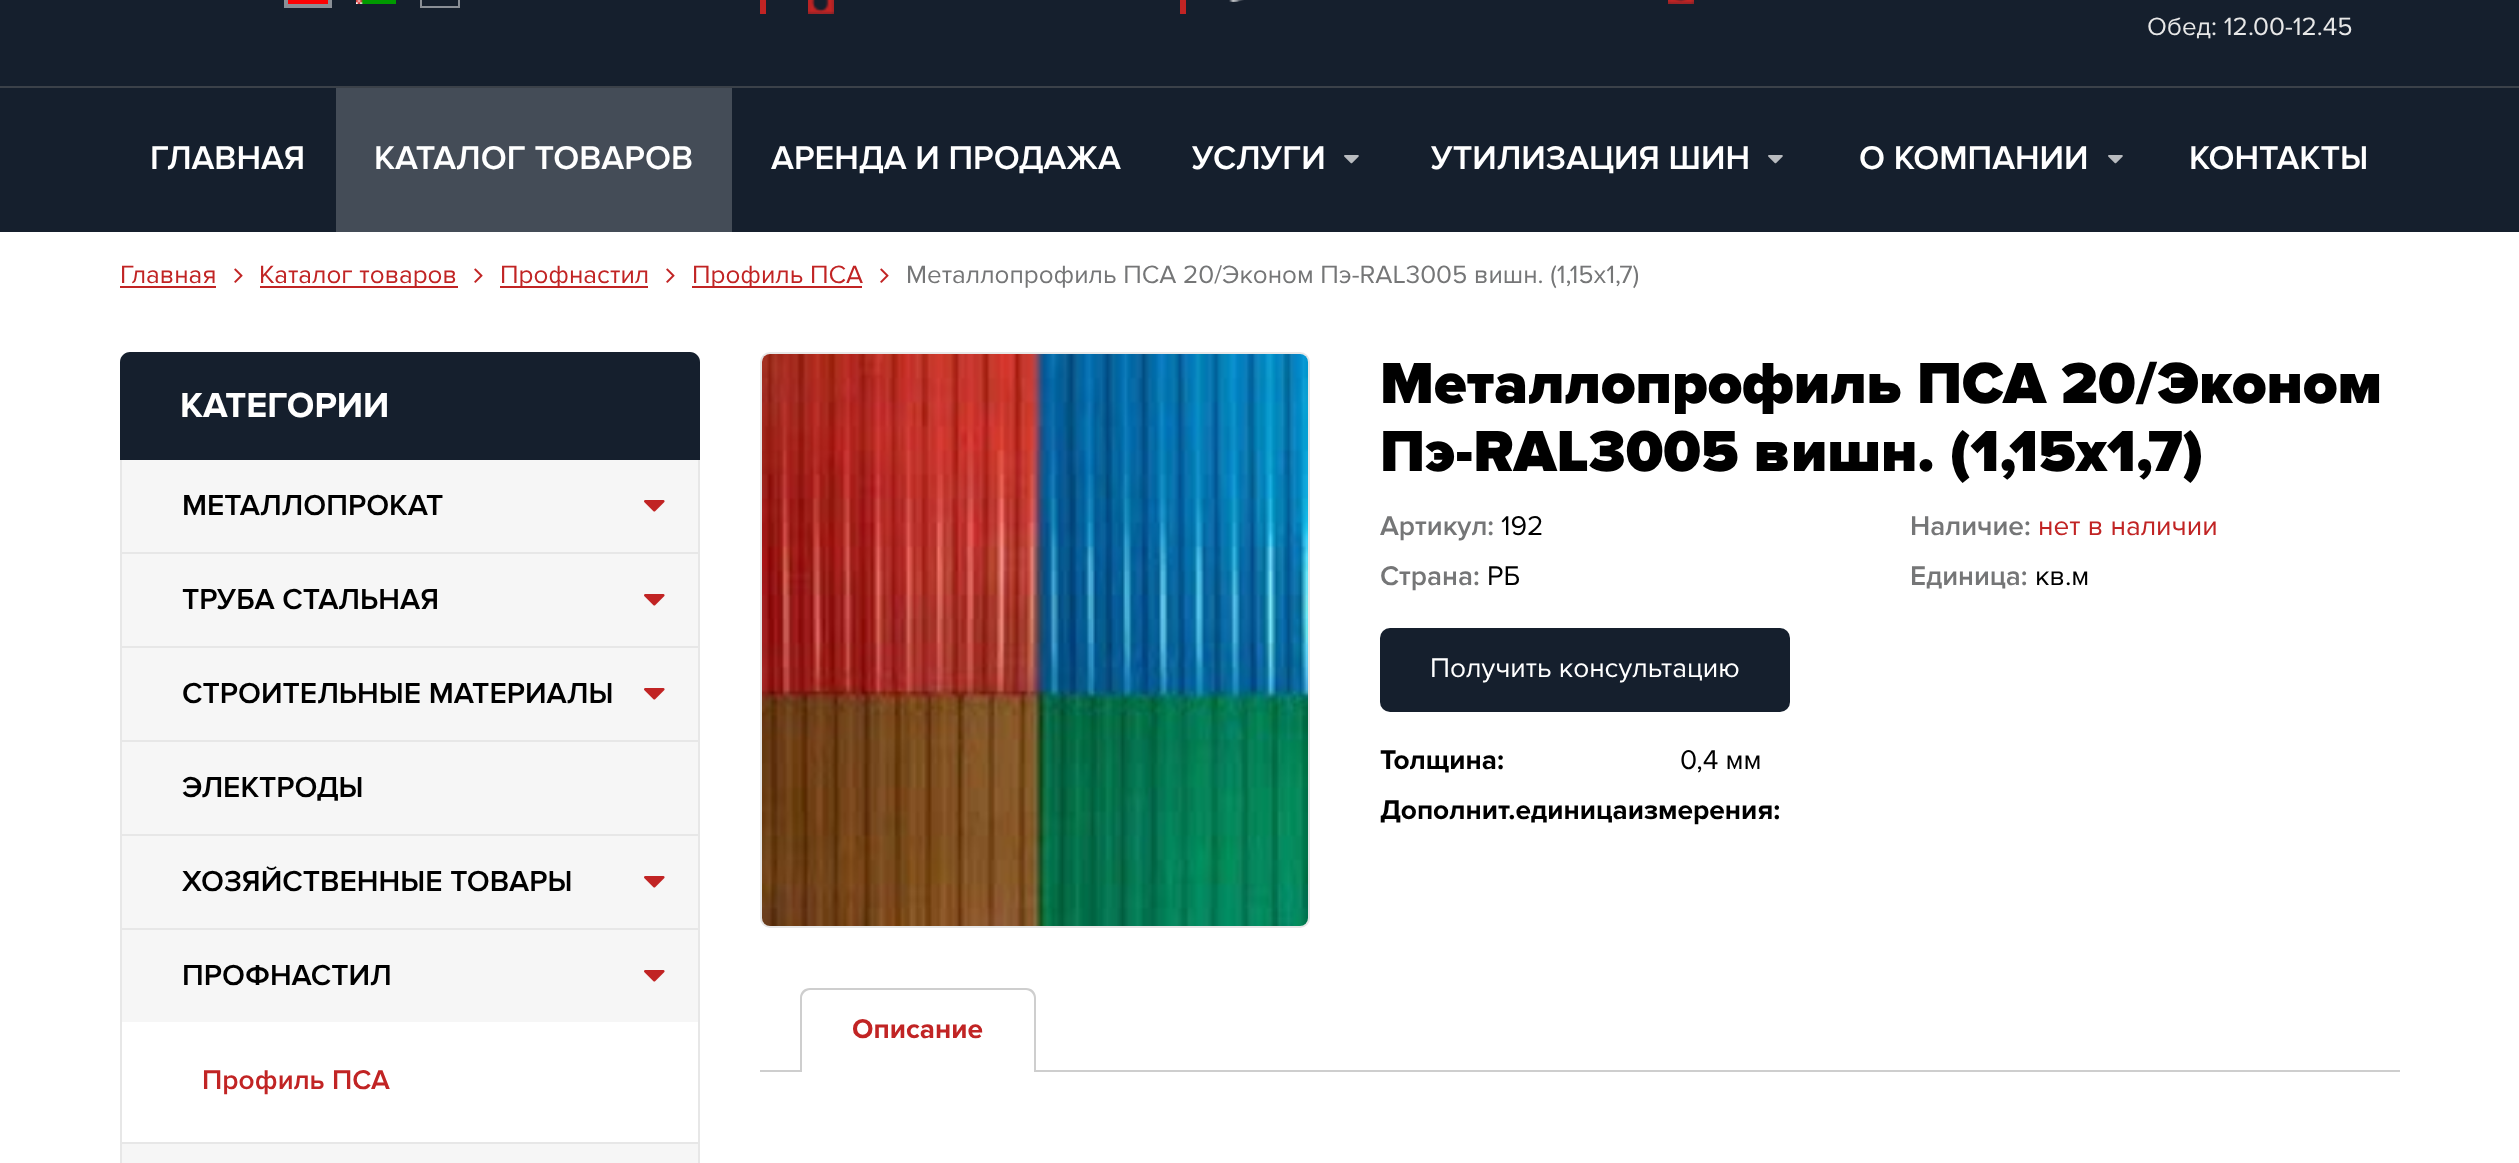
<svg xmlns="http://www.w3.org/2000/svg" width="2519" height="1163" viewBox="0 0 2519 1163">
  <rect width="100%" height="100%" fill="rgb(255,255,255)"/>
  <rect x="0" y="0" width="2519" height="232" fill="rgb(21,31,45)"/>
  <rect x="0" y="86" width="2519" height="2" fill="rgb(59,65,73)"/>
  <rect x="286" y="-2" width="44" height="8" fill="none" stroke="rgb(138,143,150)" stroke-width="4"/>
  <rect x="288" y="0" width="40" height="4" fill="rgb(252,2,4)"/>
  <image x="356" y="0" width="40" height="4" href="pic1.png"/>
  <rect x="421" y="-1" width="38" height="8" fill="none" stroke="rgb(138,143,150)" stroke-width="2"/>
  <rect x="760" y="0" width="6" height="14" fill="rgb(193,36,36)"/>
  <image x="808" y="0" width="26" height="14" href="pic2.png"/>
  <rect x="1180" y="0" width="6" height="14" fill="rgb(193,36,36)"/>
  <image x="1229" y="0" width="15" height="2" href="pic3.png"/>
  <image x="1668" y="0" width="26" height="4" href="pic4.png"/>
  <text x="2147" y="35" font-family="Proxima Nova" font-size="26" fill="rgb(231,231,231)">Обед: 12.00-12.45</text>
  <text x="150" y="169" font-family="Proxima Nova" font-size="34" font-weight="600" fill="rgb(255,255,255)">ГЛАВНАЯ</text>
  <rect x="336" y="88" width="396" height="144" fill="rgb(68,76,87)"/>
  <g font-family="Proxima Nova" font-size="34" font-weight="600" fill="rgb(255,255,255)">
    <text x="374" y="169">КАТАЛОГ ТОВАРОВ</text>
    <text x="771" y="169">АРЕНДА И ПРОДАЖА</text>
    <text x="1192" y="169">УСЛУГИ</text>
  </g>
  <image x="1344" y="155" width="15" height="9" href="pic5.png"/>
  <text x="1431" y="169" font-family="Proxima Nova" font-size="34" font-weight="600" fill="rgb(255,255,255)">УТИЛИЗАЦИЯ ШИН</text>
  <image x="1768" y="155" width="15" height="9" href="pic5.png"/>
  <text x="1859" y="169" font-family="Proxima Nova" font-size="34" font-weight="600" fill="rgb(255,255,255)">О КОМПАНИИ</text>
  <image x="2108" y="155" width="15" height="9" href="pic5.png"/>
  <text x="2189" y="169" font-family="Proxima Nova" font-size="34" font-weight="600" fill="rgb(255,255,255)">КОНТАКТЫ</text>
  <text x="120" y="283" font-family="Proxima Nova" font-size="26" fill="rgb(193,36,36)">Главная</text>
  <rect x="120" y="286" width="96" height="2" fill="rgb(193,36,36)"/>
  <image x="234" y="268" width="9" height="15" href="pic6.png"/>
  <rect x="260" y="286" width="198" height="2" fill="rgb(193,36,36)"/>
  <text x="259" y="283" font-family="Proxima Nova" font-size="26" fill="rgb(193,36,36)">Каталог товаров</text>
  <image x="474" y="268" width="9" height="15" href="pic6.png"/>
  <rect x="500" y="286" width="148" height="2" fill="rgb(193,36,36)"/>
  <text x="500" y="283" font-family="Proxima Nova" font-size="26" fill="rgb(193,36,36)">Профнастил</text>
  <image x="666" y="268" width="9" height="15" href="pic6.png"/>
  <rect x="692" y="286" width="170" height="2" fill="rgb(193,36,36)"/>
  <text x="692" y="283" font-family="Proxima Nova" font-size="26" fill="rgb(193,36,36)">Профиль ПСА</text>
  <image x="880" y="268" width="9" height="15" href="pic6.png"/>
  <text x="906" y="283" font-family="Proxima Nova" font-size="26" fill="rgb(117,118,119)">Металлопрофиль ПСА 20/Эконом Пэ-RAL3005 вишн. (1,15х1,7)</text>
  <path d="M130 352H690C695.5 352 700 356.5 700 362V460H120V362C120 356.5 124.5 352 130 352Z" fill="rgb(21,31,45)"/>
  <text x="180" y="417" font-family="Proxima Nova" font-size="36" font-weight="bold" fill="rgb(255,255,255)">КАТЕГОРИИ</text>
  <rect x="122" y="460" width="576" height="703" fill="rgb(246,246,246)"/>
  <rect x="698" y="460" width="2" height="703" fill="rgb(231,231,231)"/>
  <rect x="120" y="460" width="2" height="703" fill="rgb(231,231,231)"/>
  <rect x="122" y="552" width="576" height="2" fill="rgb(231,231,231)"/>
  <text x="182" y="515" font-family="Proxima Nova" font-size="30" font-weight="600" fill="rgb(0,0,0)">МЕТАЛЛОПРОКАТ</text>
  <image x="644" y="500" width="21" height="12" href="pic7.png"/>
  <rect x="122" y="646" width="576" height="2" fill="rgb(231,231,231)"/>
  <text x="182" y="609" font-family="Proxima Nova" font-size="30" font-weight="600" fill="rgb(0,0,0)">ТРУБА СТАЛЬНАЯ</text>
  <image x="644" y="594" width="21" height="12" href="pic7.png"/>
  <rect x="122" y="740" width="576" height="2" fill="rgb(231,231,231)"/>
  <text x="182" y="703" font-family="Proxima Nova" font-size="30" font-weight="600" fill="rgb(0,0,0)">СТРОИТЕЛЬНЫЕ МАТЕРИАЛЫ</text>
  <image x="644" y="688" width="21" height="12" href="pic7.png"/>
  <rect x="122" y="834" width="576" height="2" fill="rgb(231,231,231)"/>
  <text x="182" y="797" font-family="Proxima Nova" font-size="30" font-weight="600" fill="rgb(0,0,0)">ЭЛЕКТРОДЫ</text>
  <rect x="122" y="928" width="576" height="2" fill="rgb(231,231,231)"/>
  <text x="182" y="891" font-family="Proxima Nova" font-size="30" font-weight="600" fill="rgb(0,0,0)">ХОЗЯЙСТВЕННЫЕ ТОВАРЫ</text>
  <image x="644" y="876" width="21" height="12" href="pic7.png"/>
  <rect x="122" y="1142" width="576" height="2" fill="rgb(231,231,231)"/>
  <text x="182" y="985" font-family="Proxima Nova" font-size="30" font-weight="600" fill="rgb(0,0,0)">ПРОФНАСТИЛ</text>
  <image x="644" y="970" width="21" height="12" href="pic7.png"/>
  <rect x="122" y="1022" width="576" height="120" fill="rgb(255,255,255)"/>
  <text x="202" y="1089" font-family="Proxima Nova" font-size="28" font-weight="600" fill="rgb(193,36,36)">Профиль ПСА</text>
  <rect x="761" y="353" width="548" height="574" rx="9" fill="none" stroke="rgb(231,231,231)" stroke-width="2"/>
  <image x="762" y="354" width="546" height="572" href="pic8.png"/>
  <g font-family="Proxima Nova" font-size="60" font-weight="900" fill="rgb(0,0,0)">
    <text>
      <tspan x="1380" y="403">Металлопрофиль ПСА 20/Эконом</tspan>
      <tspan x="1380" y="471">Пэ-RAL3005 вишн. (1,15х1,7)</tspan>
    </text>
  </g>
  <text x="1380" y="535" font-family="Proxima Nova" font-size="28" font-weight="600" fill="rgb(117,118,119)">Артикул:</text>
  <text x="1501" y="535" font-family="Proxima Nova" font-size="28" fill="rgb(0,0,0)">192</text>
  <text x="1910" y="535" font-family="Proxima Nova" font-size="28" font-weight="600" fill="rgb(117,118,119)">Наличие:</text>
  <text x="2038" y="535" font-family="Proxima Nova" font-size="28" fill="rgb(193,36,36)">нет в наличии</text>
  <text x="1380" y="585" font-family="Proxima Nova" font-size="28" font-weight="600" fill="rgb(117,118,119)">Страна:</text>
  <text x="1487" y="585" font-family="Proxima Nova" font-size="28" fill="rgb(0,0,0)">РБ</text>
  <text x="1910" y="585" font-family="Proxima Nova" font-size="28" font-weight="600" fill="rgb(117,118,119)">Единица:</text>
  <text x="2035" y="585" font-family="Proxima Nova" font-size="28" fill="rgb(0,0,0)">кв.м</text>
  <rect x="1380" y="628" width="410" height="84" rx="10" fill="rgb(21,31,45)"/>
  <text x="1430" y="677" font-family="Proxima Nova" font-size="28" fill="rgb(255,255,255)">Получить консультацию</text>
  <text x="1380" y="769" font-family="Proxima Nova" font-size="28" font-weight="bold" fill="rgb(0,0,0)">Толщина:</text>
  <text x="1680" y="769" font-family="Proxima Nova" font-size="28" fill="rgb(0,0,0)">0,4 мм</text>
  <text x="1380" y="819" font-family="Proxima Nova" font-size="28" font-weight="bold" fill="rgb(0,0,0)">Дополнит.единицаизмерения:</text>
  <rect x="760" y="1070" width="1640" height="2" fill="rgb(206,206,206)"/>
  <path d="M810 988H1026C1031.5 988 1036 992.5 1036 998V1072H800V998C800 992.5 804.5 988 810 988Z" fill="rgb(255,255,255)"/>
  <path d="M810 988H1026C1032 988 1036 992 1036 998V1072H800V998C800 992 804 988 810 988ZM810 990H1026C1030 990 1034 994 1034 998V1072H802V998C802 994 806 990 810 990Z" fill="rgb(206,206,206)" fill-rule="evenodd"/>
  <text x="852" y="1038" font-family="Proxima Nova" font-size="28" font-weight="bold" fill="rgb(193,36,36)">Описание</text>
</svg>
